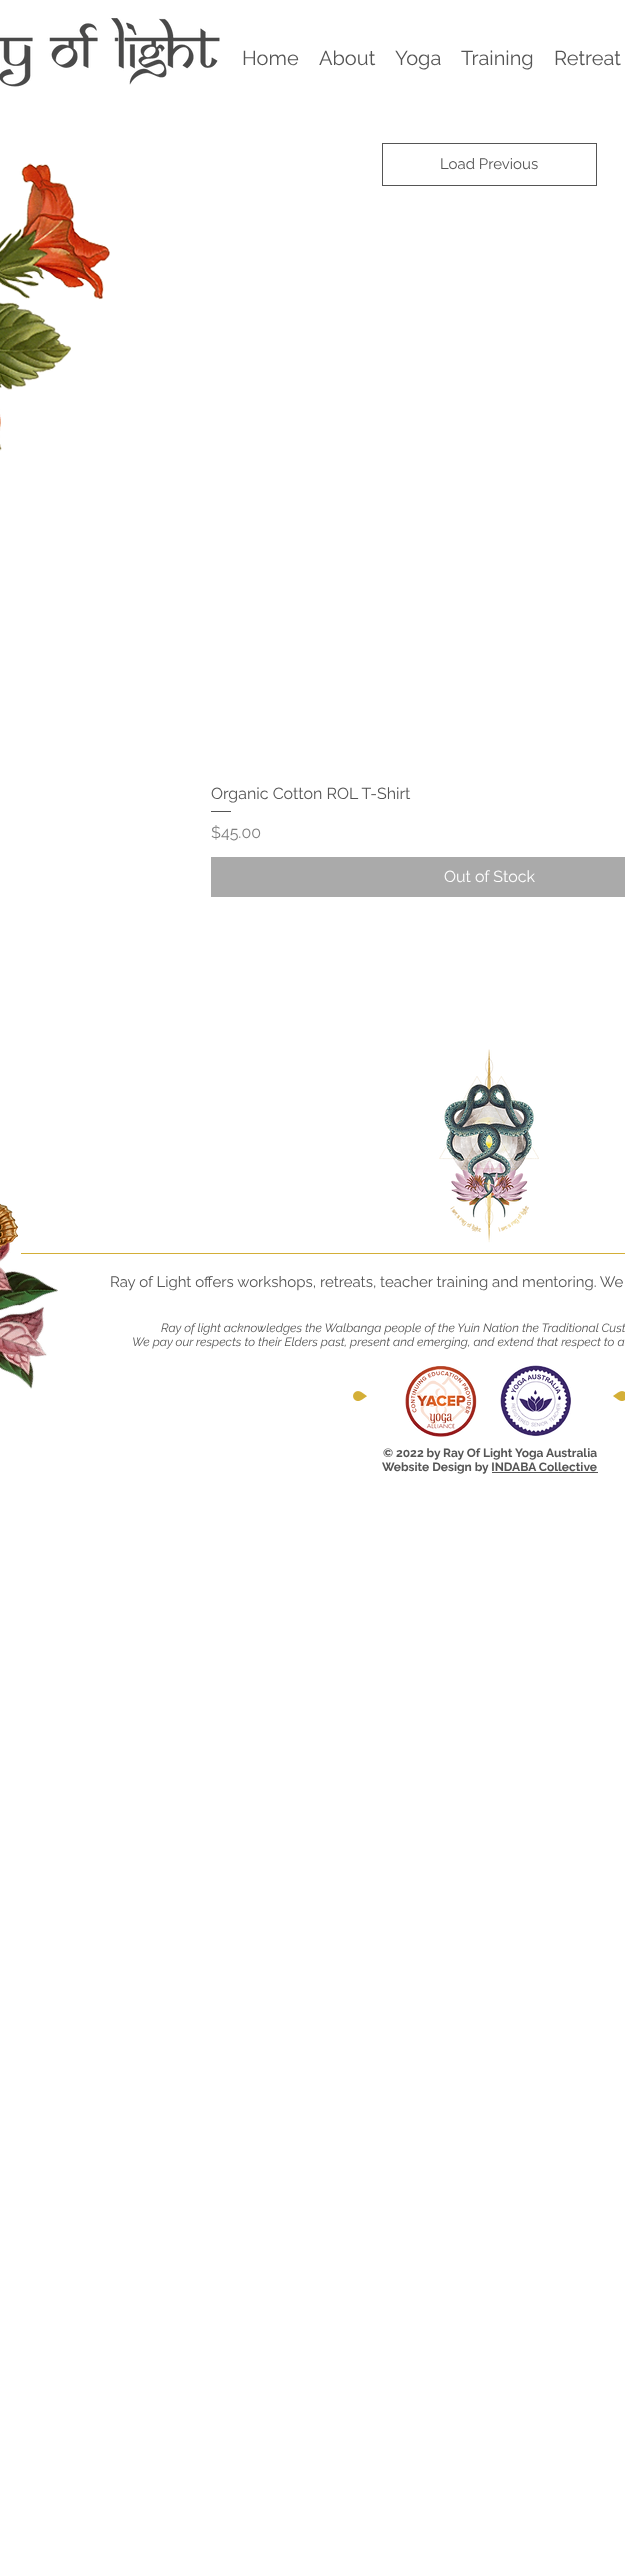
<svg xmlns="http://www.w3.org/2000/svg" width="625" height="2573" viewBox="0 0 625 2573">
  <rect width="100%" height="100%" fill="rgb(255,255,255)"/>
  <image x="0" y="18" width="220" height="69" href="pic1.png"/>
  <g font-family="'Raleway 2'" font-size="20" fill="rgb(85,85,85)">
    <text x="242" y="65">Home</text>
    <text x="319" y="65">About</text>
    <text x="395" y="65">Yoga</text>
    <text x="461" y="65">Training</text>
    <text x="554" y="65">Retreat</text>
  </g>
  <image x="0" y="163" width="110" height="288" href="pic2.png"/>
  <rect x="382.5" y="143.5" width="214" height="42" fill="none" stroke="rgb(85,85,85)"/>
  <text x="440" y="169" font-family="Raleway" font-size="15" fill="rgb(85,85,85)">Load Previous</text>
  <text x="211" y="799" font-family="Raleway" font-size="16" fill="rgb(85,85,85)">Organic Cotton ROL T-Shirt</text>
  <rect x="211" y="811" width="20" height="1" fill="rgb(85,85,85)"/>
  <text x="211" y="838" font-family="Raleway" font-size="16" fill="rgb(128,128,128)">$45.00</text>
  <rect x="211" y="857" width="414" height="40" fill="rgb(170,170,170)"/>
  <text x="444" y="882" font-family="Raleway" font-size="16" fill="rgb(255,255,255)">Out of Stock</text>
  <image x="439" y="1049" width="100" height="194" href="pic3.png"/>
  <rect x="21" y="1253" width="604" height="1" fill="rgb(212,175,55)"/>
  <image x="0" y="1240" width="58" height="149" href="pic5.png"/>
  <image x="0" y="1203" width="18" height="46" href="pic4.png"/>
  <text x="110" y="1287" font-family="Raleway" font-size="15" fill="rgb(85,85,85)">Ray of Light offers workshops, retreats, teacher training and mentoring. We</text>
  <g font-family="Raleway" font-size="12" font-style="italic" fill="rgb(85,85,85)">
    <text x="161" y="1332">Ray of light acknowledges the Walbanga people of the Yuin Nation the Traditional Cust</text>
    <text x="132" y="1346">We pay our respects to their Elders past, present and emerging, and extend that respect to a</text>
  </g>
  <image x="353" y="1391" width="14" height="10" href="pic6.png"/>
  <image x="405" y="1366" width="72" height="71" href="pic7.png"/>
  <image x="500" y="1365" width="71" height="71" href="pic8.png"/>
  <image x="613" y="1391" width="12" height="10" href="pic9.png"/>
  <g font-family="Raleway" font-size="12" font-weight="bold" fill="rgb(85,85,85)">
    <text x="383" y="1457">© 2022 by Ray Of Light Yoga Australia</text>
    <text x="382" y="1471">Website Design by INDABA Collective</text>
  </g>
  <rect x="492" y="1472" width="106" height="1" fill="rgb(85,85,85)"/>
</svg>
